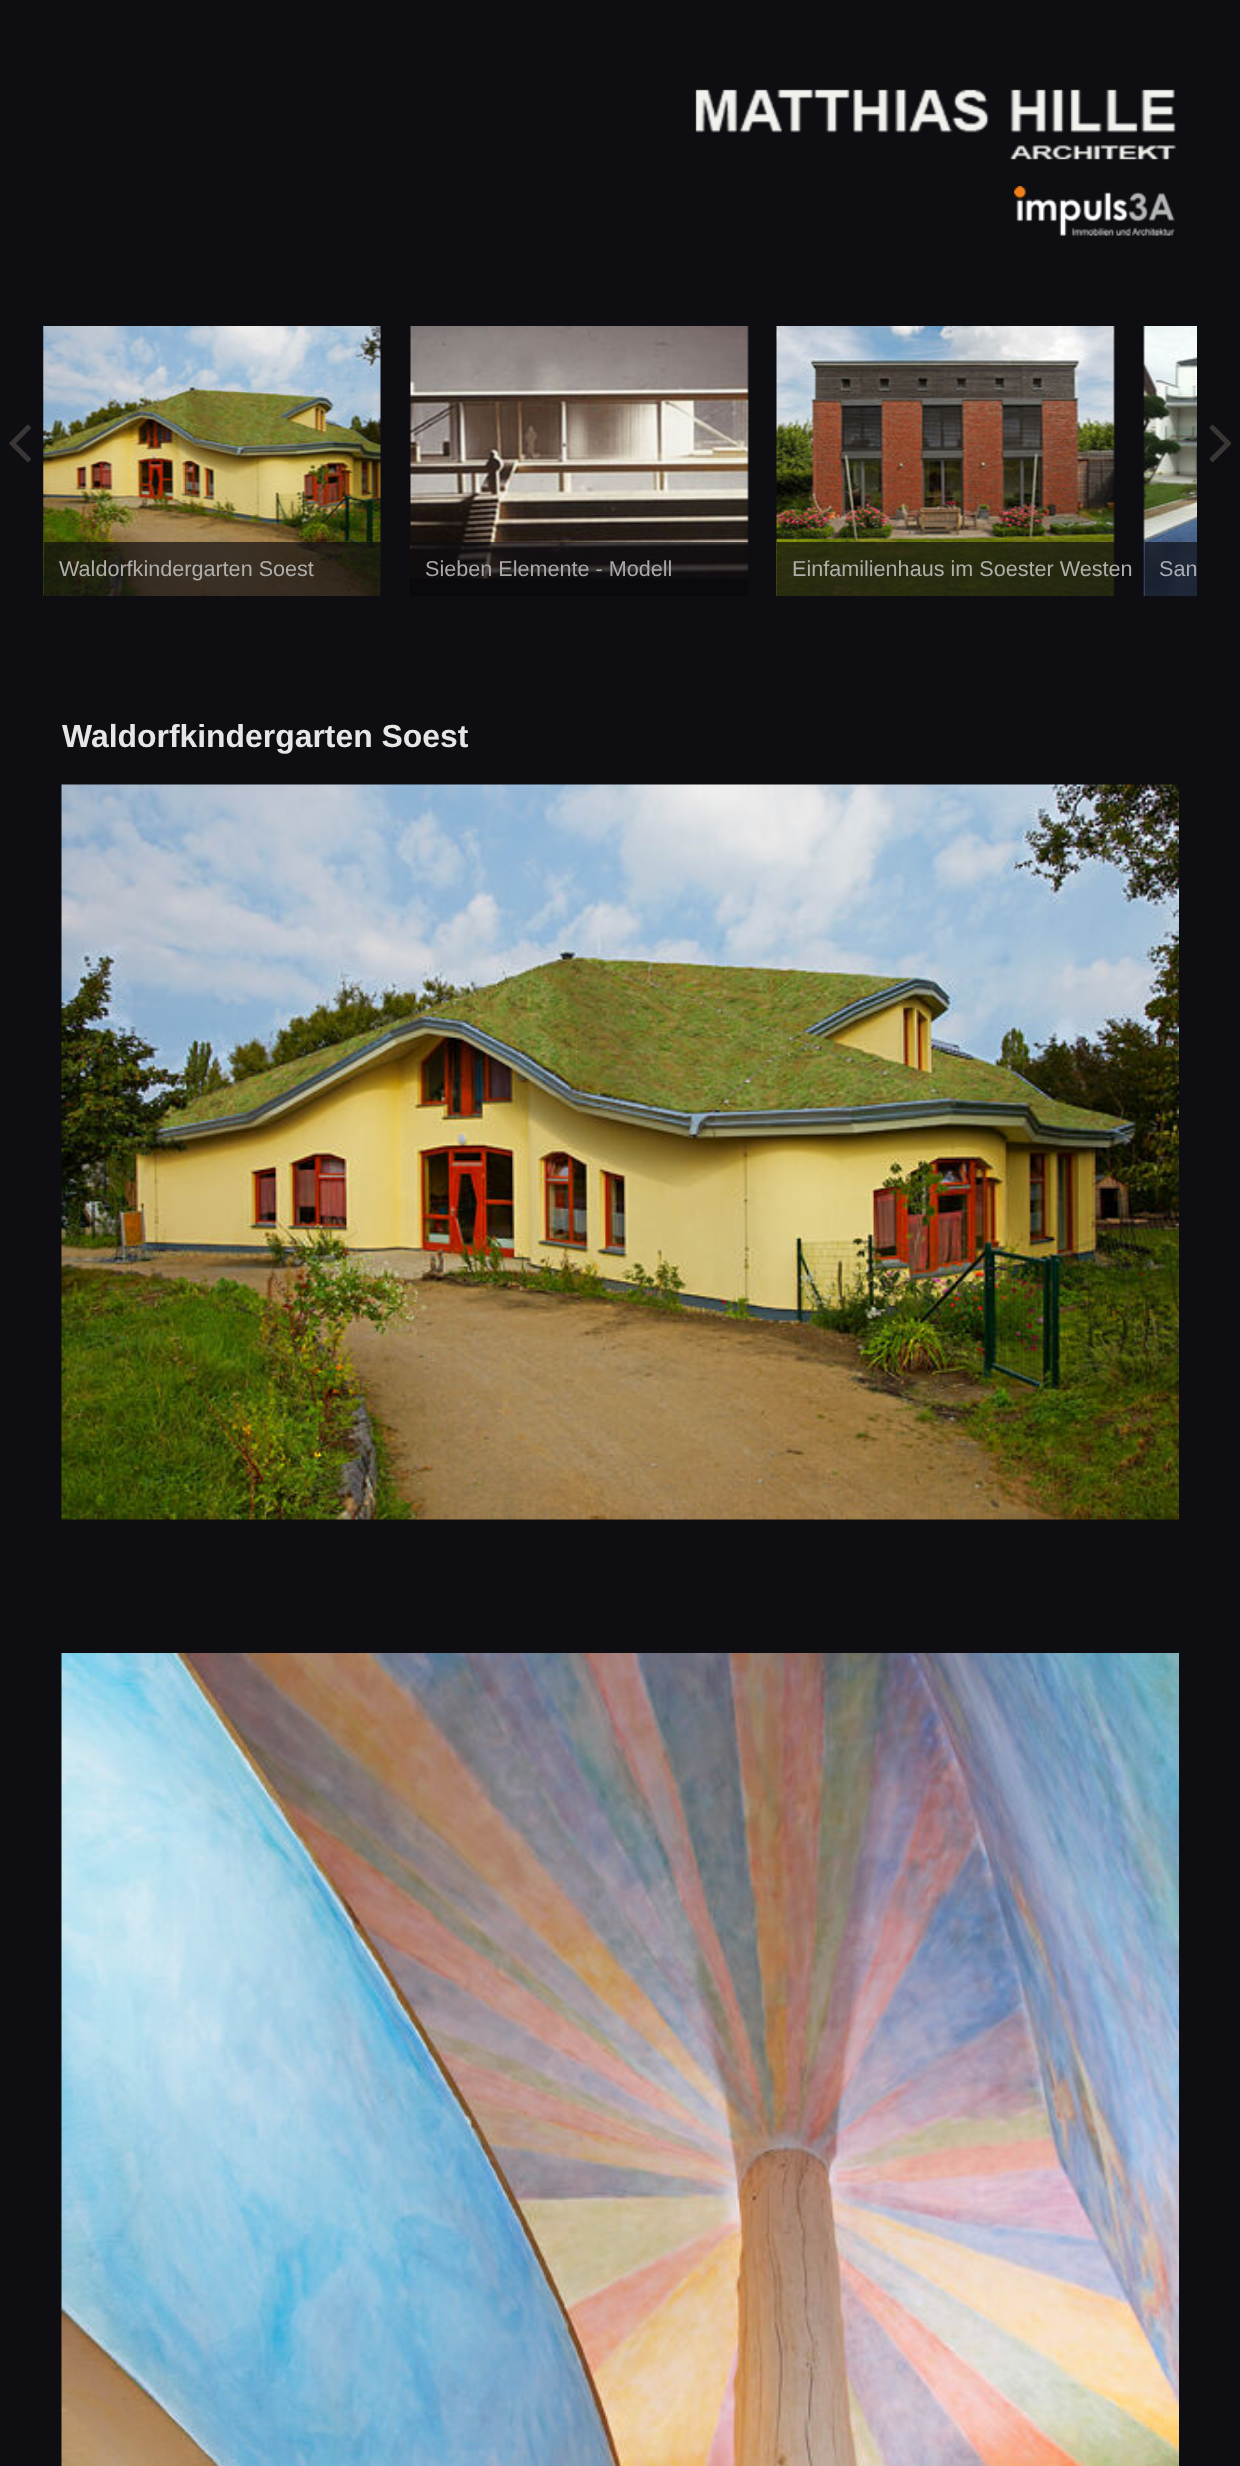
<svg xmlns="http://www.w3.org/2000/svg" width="1240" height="2466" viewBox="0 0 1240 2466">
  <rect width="100%" height="100%" fill="rgb(14,13,17)"/>
  <image x="695" y="89" width="482" height="71" href="pic1.png"/>
  <image x="1014" y="186" width="161" height="50" href="pic2.png"/>
  <image x="9" y="424" width="22" height="38" href="pic3.png"/>
  <image x="1209" y="424" width="23" height="38" href="pic4.png"/>
  <image x="43" y="326" width="338" height="270" href="pic5.png"/>
  <rect x="44" y="542" width="337" height="54" fill="rgba(14,13,17,0.7)"/>
  <text x="59" y="576" font-family="Liberation Sans" font-size="21.6" fill="rgb(176,174,170)">Waldorfkindergarten Soest</text>
  <image x="410" y="326" width="339" height="270" href="pic6.png"/>
  <rect x="411" y="542" width="338" height="54" fill="rgba(14,13,17,0.7)"/>
  <text x="425" y="576" font-family="Liberation Sans" font-size="21.6" fill="rgb(170,169,169)">Sieben Elemente - Modell</text>
  <image x="776" y="326" width="339" height="270" href="pic7.png"/>
  <rect x="777" y="542" width="338" height="54" fill="rgba(14,13,17,0.7)"/>
  <text x="792" y="576" font-family="Liberation Sans" font-size="21.6" fill="rgb(176,174,170)">Einfamilienhaus im Soester Westen</text>
  <image x="1143" y="326" width="54" height="270" href="pic8.png"/>
  <rect x="1145" y="542" width="52" height="54" fill="rgba(14,13,17,0.7)"/>
  <text x="1159" y="576" font-family="Liberation Sans" font-size="21.6" fill="rgb(170,172,177)">San</text>
  <text x="62" y="747" font-family="Liberation Sans" font-size="31.9" font-weight="bold" fill="rgb(230,230,230)">Waldorfkindergarten Soest</text>
  <image x="61" y="784" width="1118" height="736" href="pic9.png"/>
  <image x="61" y="1653" width="1118" height="813" href="pic10.png"/>
</svg>
